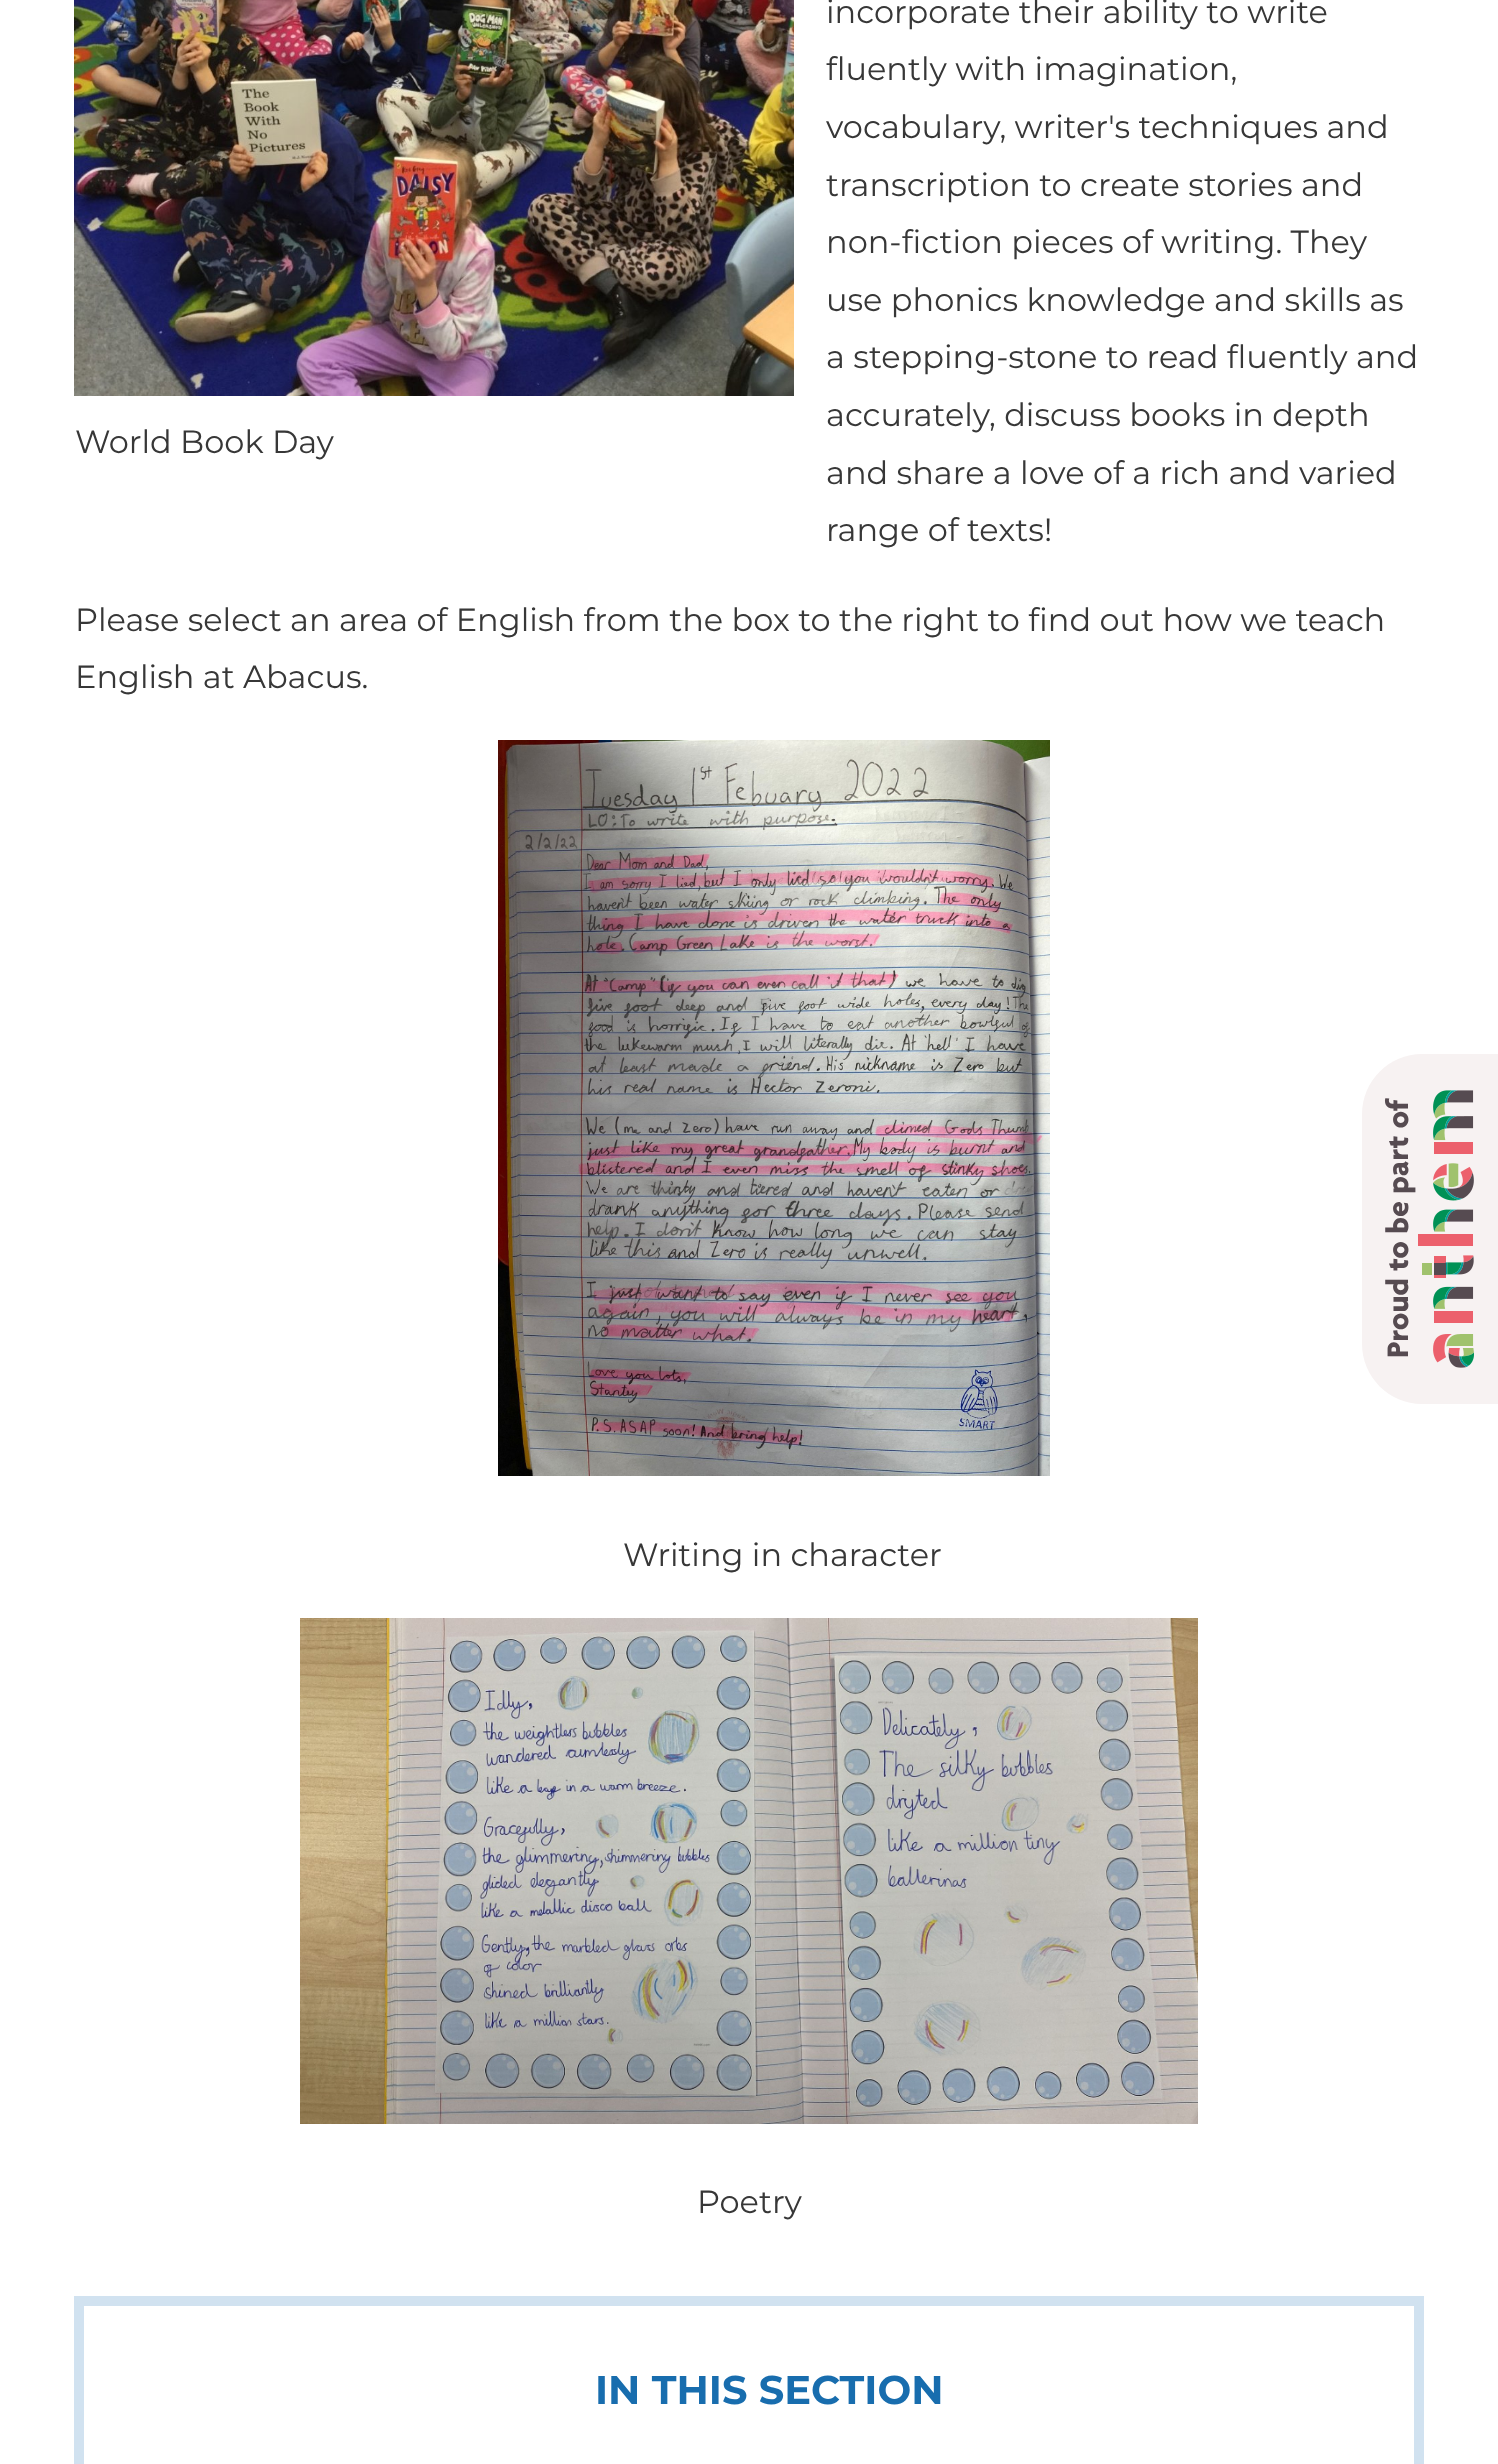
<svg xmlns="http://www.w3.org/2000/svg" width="1498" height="2464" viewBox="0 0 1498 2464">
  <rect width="100%" height="100%" fill="rgb(255,255,255)"/>
  <image x="74" y="0" width="720" height="396" href="pic1.png"/>
  <g font-family="Montserrat" font-size="32" fill="rgb(55,55,55)">
    <text x="75" y="453">World Book Day</text>
    <text>
      <tspan x="826" y="23">incorporate their ability to write</tspan>
      <tspan x="826" y="80">fluently with imagination,</tspan>
      <tspan x="826" y="138">vocabulary, writer's techniques and</tspan>
      <tspan x="826" y="196">transcription to create stories and</tspan>
      <tspan x="826" y="253">non-fiction pieces of writing. They</tspan>
      <tspan x="826" y="311">use phonics knowledge and skills as</tspan>
      <tspan x="826" y="368">a stepping-stone to read fluently and</tspan>
      <tspan x="826" y="426">accurately, discuss books in depth</tspan>
      <tspan x="826" y="484">and share a love of a rich and varied</tspan>
      <tspan x="826" y="541">range of texts!</tspan>
    </text>
    <text>
      <tspan x="75" y="631">Please select an area of English from the box to the right to find out how we teach</tspan>
      <tspan x="75" y="688">English at Abacus.</tspan>
    </text>
  </g>
  <image x="498" y="740" width="552" height="736" href="pic2.png"/>
  <text x="623" y="1566" font-family="Montserrat" font-size="32" fill="rgb(55,55,55)">Writing in character</text>
  <image x="300" y="1618" width="898" height="506" href="pic3.png"/>
  <text x="697" y="2213" font-family="Montserrat" font-size="32" fill="rgb(55,55,55)">Poetry</text>
  <rect x="79" y="2301" width="1340" height="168" fill="none" stroke="rgb(209,226,240)" stroke-width="10"/>
  <text x="595" y="2404" font-family="Montserrat" font-size="40" font-weight="bold" fill="rgb(24,109,174)">IN THIS SECTION</text>
  <path d="M1362 1344V1114C1362 1081 1389 1054 1422 1054H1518V1404H1422C1389 1404 1362 1377 1362 1344Z" fill="rgb(247,242,242)"/>
  <text x="1408" y="1358" transform="rotate(-90 1408 1358)" font-family="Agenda" font-size="32" font-weight="bold" fill="rgb(86,75,81)">Proud to be part of</text>
  <image x="1418" y="1090" width="56" height="278" href="pic4.png"/>
</svg>
